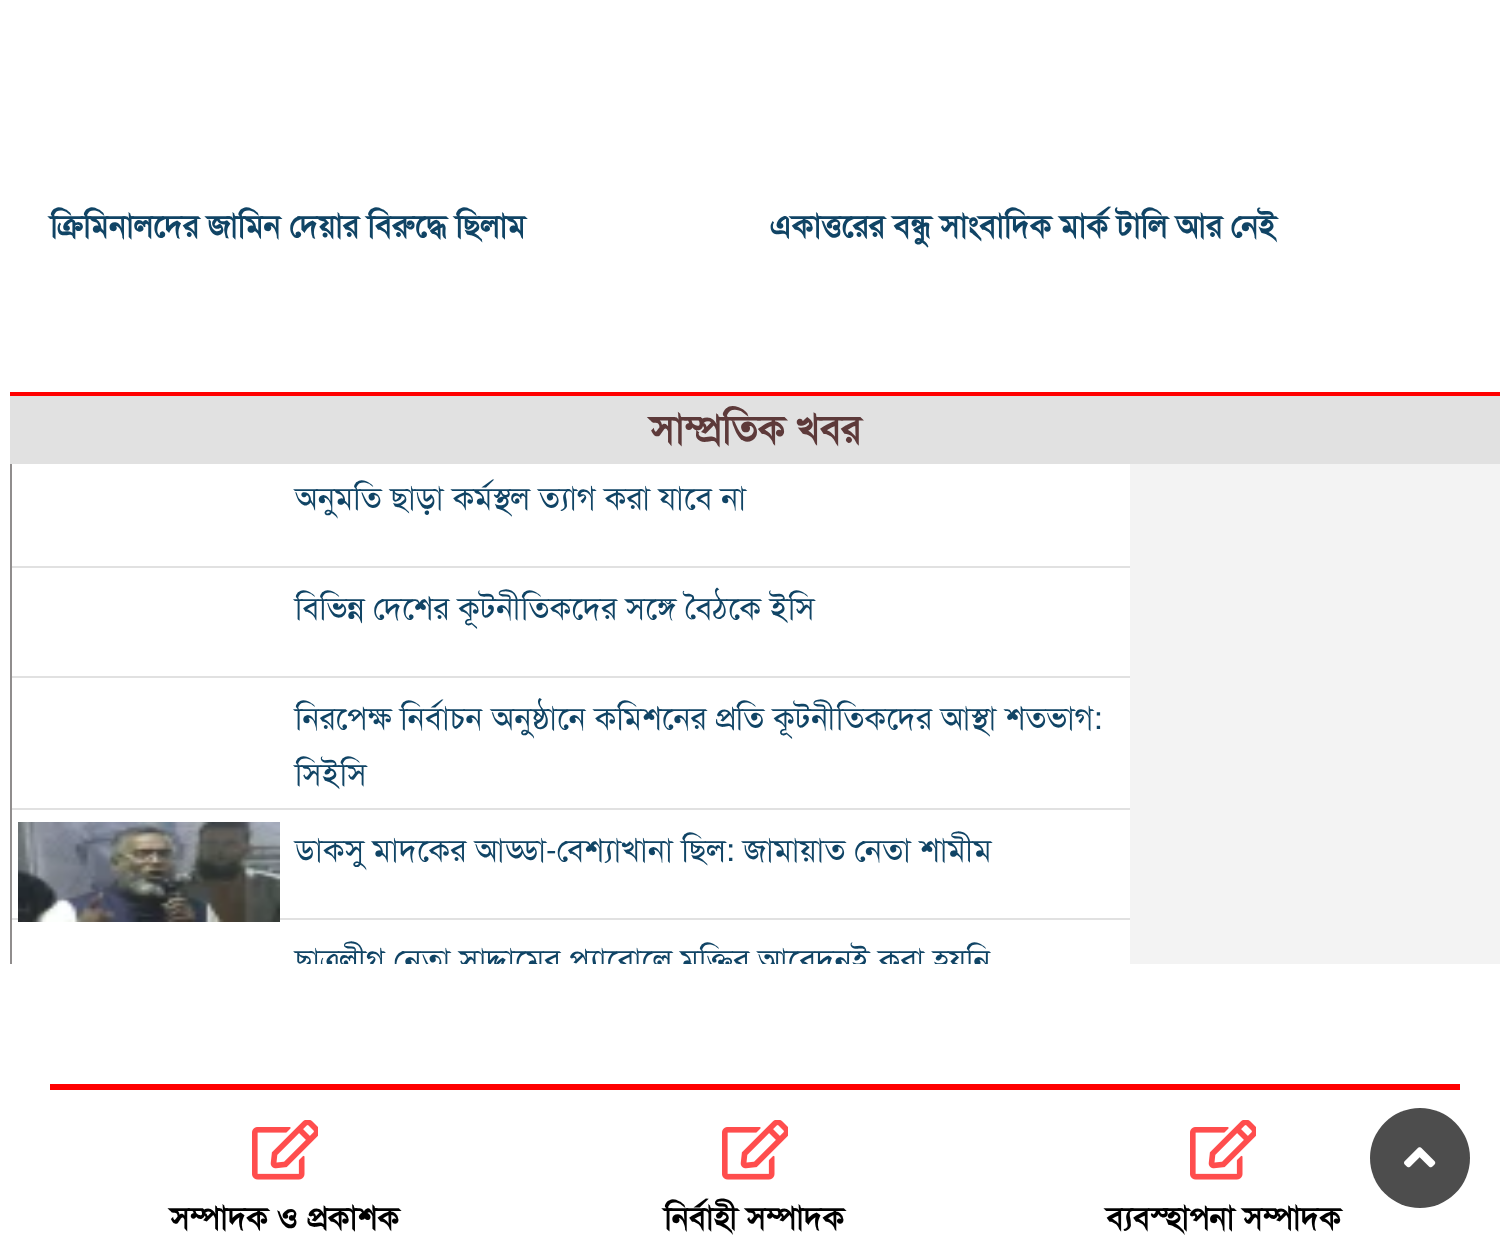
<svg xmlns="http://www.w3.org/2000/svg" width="1509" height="1247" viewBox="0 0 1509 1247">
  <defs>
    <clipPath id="clip1"><rect x="12" y="464" width="1488" height="500"/></clipPath>
  </defs>
  <rect width="100%" height="100%" fill="rgb(255,255,255)"/>
  <g font-family="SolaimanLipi" font-size="32" font-weight="bold" fill="rgb(16,68,101)">
    <text x="50" y="237">ক্রিমিনালদের জামিন দেয়ার বিরুদ্ধে ছিলাম</text>
    <text x="769" y="237">একাত্তরের বন্ধু সাংবাদিক মার্ক টালি আর নেই</text>
  </g>
  <rect x="10" y="396" width="1490" height="68" fill="rgb(225,225,225)"/>
  <rect x="10" y="392" width="1490" height="4" fill="rgb(255,0,0)"/>
  <text x="650" y="443" font-family="SolaimanLipi" font-size="40" font-weight="bold" fill="rgb(93,58,58)">সাম্প্রতিক খবর</text>
  <rect x="1130" y="464" width="370" height="500" fill="rgb(243,243,243)"/>
  <rect x="10" y="464" width="2" height="500" fill="rgb(144,141,141)"/>
  <rect x="12" y="566" width="1118" height="2" fill="rgb(225,225,225)"/>
  <text x="295" y="509" font-family="SolaimanLipi" font-size="32" fill="rgb(16,68,101)">অনুমতি ছাড়া কর্মস্থল ত্যাগ করা যাবে না</text>
  <rect x="12" y="676" width="1118" height="2" fill="rgb(225,225,225)"/>
  <text x="295" y="619" font-family="SolaimanLipi" font-size="32" fill="rgb(16,68,101)">বিভিন্ন দেশের কূটনীতিকদের সঙ্গে বৈঠকে ইসি</text>
  <rect x="12" y="808" width="1118" height="2" fill="rgb(225,225,225)"/>
  <g font-family="SolaimanLipi" font-size="32" fill="rgb(16,68,101)">
    <text>
      <tspan x="295" y="729">নিরপেক্ষ নির্বাচন অনুষ্ঠানে কমিশনের প্রতি কূটনীতিকদের আস্থা শতভাগ:</tspan>
      <tspan x="295" y="785">সিইসি</tspan>
    </text>
  </g>
  <rect x="12" y="918" width="1118" height="2" fill="rgb(225,225,225)"/>
  <image x="18" y="822" width="262" height="100" href="pic1.png"/>
  <text x="295" y="861" font-family="SolaimanLipi" font-size="32" fill="rgb(16,68,101)">ডাকসু মাদকের আড্ডা-বেশ্যাখানা ছিল: জামায়াত নেতা শামীম</text>
  <g clip-path="url(#clip1)">
    <text x="295" y="971" font-family="SolaimanLipi" font-size="32" fill="rgb(16,68,101)">ছাত্রলীগ নেতা সাদ্দামের প্যারোলে মুক্তির আবেদনই করা হয়নি</text>
  </g>
  <circle cx="1420" cy="1158" r="50" fill="rgb(77,77,77)"/>
  <image x="1404" y="1147" width="32" height="21" href="pic2.png"/>
  <rect x="50" y="1084" width="1410" height="6" fill="rgb(255,0,0)"/>
  <image x="252" y="1120" width="66" height="60" href="pic3.png"/>
  <text x="170" y="1229" font-family="SolaimanLipi" font-size="32" font-weight="bold" fill="rgb(0,0,0)">সম্পাদক ও প্রকাশক</text>
  <image x="722" y="1120" width="66" height="60" href="pic3.png"/>
  <text x="664" y="1229" font-family="SolaimanLipi" font-size="32" font-weight="bold" fill="rgb(0,0,0)">নির্বাহী সম্পাদক</text>
  <image x="1190" y="1120" width="66" height="60" href="pic3.png"/>
  <text x="1106" y="1229" font-family="SolaimanLipi" font-size="32" font-weight="bold" fill="rgb(0,0,0)">ব্যবস্হাপনা সম্পাদক</text>
</svg>
